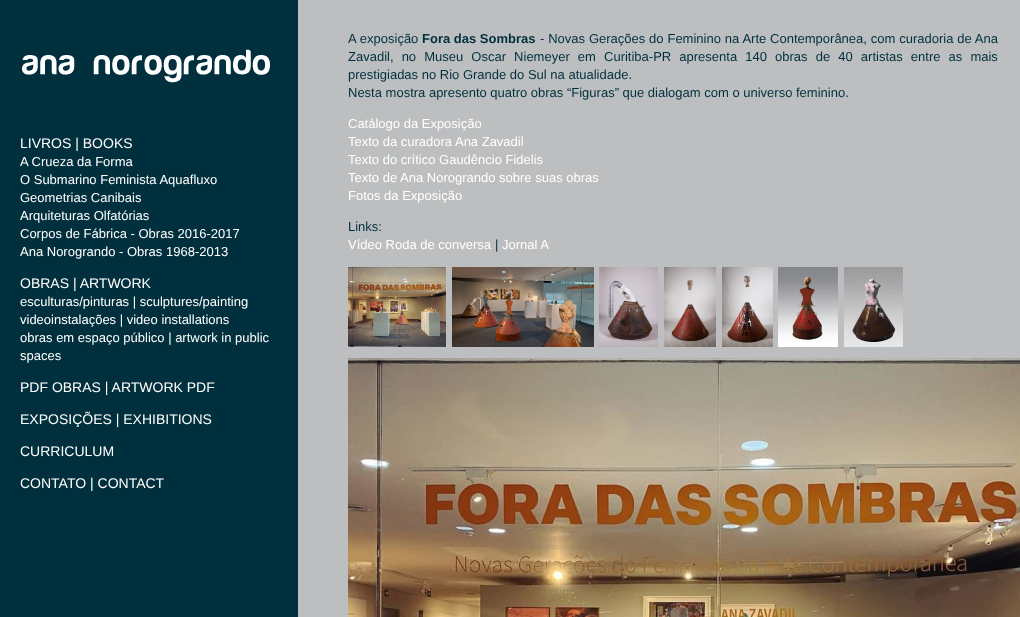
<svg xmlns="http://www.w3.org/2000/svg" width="1020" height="617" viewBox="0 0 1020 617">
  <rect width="100%" height="100%" fill="rgb(188,190,192)"/>
  <rect x="0" y="0" width="298" height="617" fill="rgb(0,48,61)"/>
  <image x="22" y="49" width="248" height="34" href="pic1.png"/>
  <text x="20" y="148" font-family="Liberation Sans" font-size="14" fill="rgb(255,255,255)">LIVROS | BOOKS</text>
  <g font-family="Liberation Sans" font-size="13" fill="rgb(255,255,255)">
    <text>
      <tspan x="20" y="166">A Crueza da Forma</tspan>
      <tspan x="20" y="184">O Submarino Feminista Aquafluxo</tspan>
      <tspan x="20" y="202">Geometrias Canibais</tspan>
      <tspan x="20" y="220">Arquiteturas Olfatórias</tspan>
      <tspan x="20" y="238">Corpos de Fábrica - Obras 2016-2017</tspan>
      <tspan x="20" y="256">Ana Norogrando - Obras 1968-2013</tspan>
    </text>
  </g>
  <text x="20" y="288" font-family="Liberation Sans" font-size="14" fill="rgb(255,255,255)">OBRAS | ARTWORK</text>
  <g font-family="Liberation Sans" font-size="13" fill="rgb(255,255,255)">
    <text>
      <tspan x="20" y="306">esculturas/pinturas | sculptures/painting</tspan>
      <tspan x="20" y="324">videoinstalações | video installations</tspan>
      <tspan x="20" y="342">obras em espaço público | artwork in public</tspan>
      <tspan x="20" y="360">spaces</tspan>
    </text>
  </g>
  <g font-family="Liberation Sans" font-size="14" fill="rgb(255,255,255)">
    <text x="20" y="392">PDF OBRAS | ARTWORK PDF</text>
    <text x="20" y="424">EXPOSIÇÕES | EXHIBITIONS</text>
    <text x="20" y="456">CURRICULUM</text>
    <text x="20" y="488">CONTATO | CONTACT</text>
  </g>
  <text x="348" y="43" word-spacing="0.25" font-family="Liberation Sans" font-size="13" fill="rgb(0,48,61)">A exposição</text>
  <text x="422" y="43" font-family="Liberation Sans" font-size="13" font-weight="bold" fill="rgb(0,48,61)">Fora das Sombras</text>
  <g font-family="Liberation Sans" font-size="13" fill="rgb(0,48,61)">
    <text x="540" y="43" word-spacing="0.25">- Novas Gerações do Feminino na Arte Contemporânea, com curadoria de Ana</text>
    <text>
      <tspan x="348" y="61" word-spacing="4.5">Zavadil, no Museu Oscar Niemeyer em Curitiba-PR apresenta 140 obras de 40 artistas entre as mais</tspan>
      <tspan x="348" y="79">prestigiadas no Rio Grande do Sul na atualidade.</tspan>
      <tspan x="348" y="97">Nesta mostra apresento quatro obras “Figuras” que dialogam com o universo feminino.</tspan>
    </text>
  </g>
  <g font-family="Liberation Sans" font-size="13" fill="rgb(255,255,255)">
    <text>
      <tspan x="348" y="128">Catálogo da Exposição</tspan>
      <tspan x="348" y="146">Texto da curadora Ana Zavadil</tspan>
      <tspan x="348" y="164">Texto do crítico Gaudêncio Fidelis</tspan>
      <tspan x="348" y="182">Texto de Ana Norogrando sobre suas obras</tspan>
      <tspan x="348" y="200">Fotos da Exposição</tspan>
    </text>
  </g>
  <text x="348" y="231" font-family="Liberation Sans" font-size="13" fill="rgb(0,48,61)">Links:</text>
  <text x="348" y="249" font-family="Liberation Sans" font-size="13" fill="rgb(255,255,255)">Vídeo Roda de conversa</text>
  <text x="495" y="249" font-family="Liberation Sans" font-size="13" fill="rgb(0,48,61)">|</text>
  <text x="502" y="249" font-family="Liberation Sans" font-size="13" fill="rgb(255,255,255)">Jornal A</text>
  <image x="348" y="267" width="98" height="80" href="pic2.png"/>
  <image x="452" y="267" width="142" height="80" href="pic3.png"/>
  <image x="599" y="267" width="59" height="80" href="pic4.png"/>
  <image x="664" y="267" width="52" height="80" href="pic5.png"/>
  <image x="722" y="267" width="51" height="80" href="pic6.png"/>
  <image x="778" y="267" width="60" height="80" href="pic7.png"/>
  <image x="844" y="267" width="59" height="80" href="pic8.png"/>
  <image x="348" y="358" width="672" height="259" href="pic9.png"/>
</svg>
